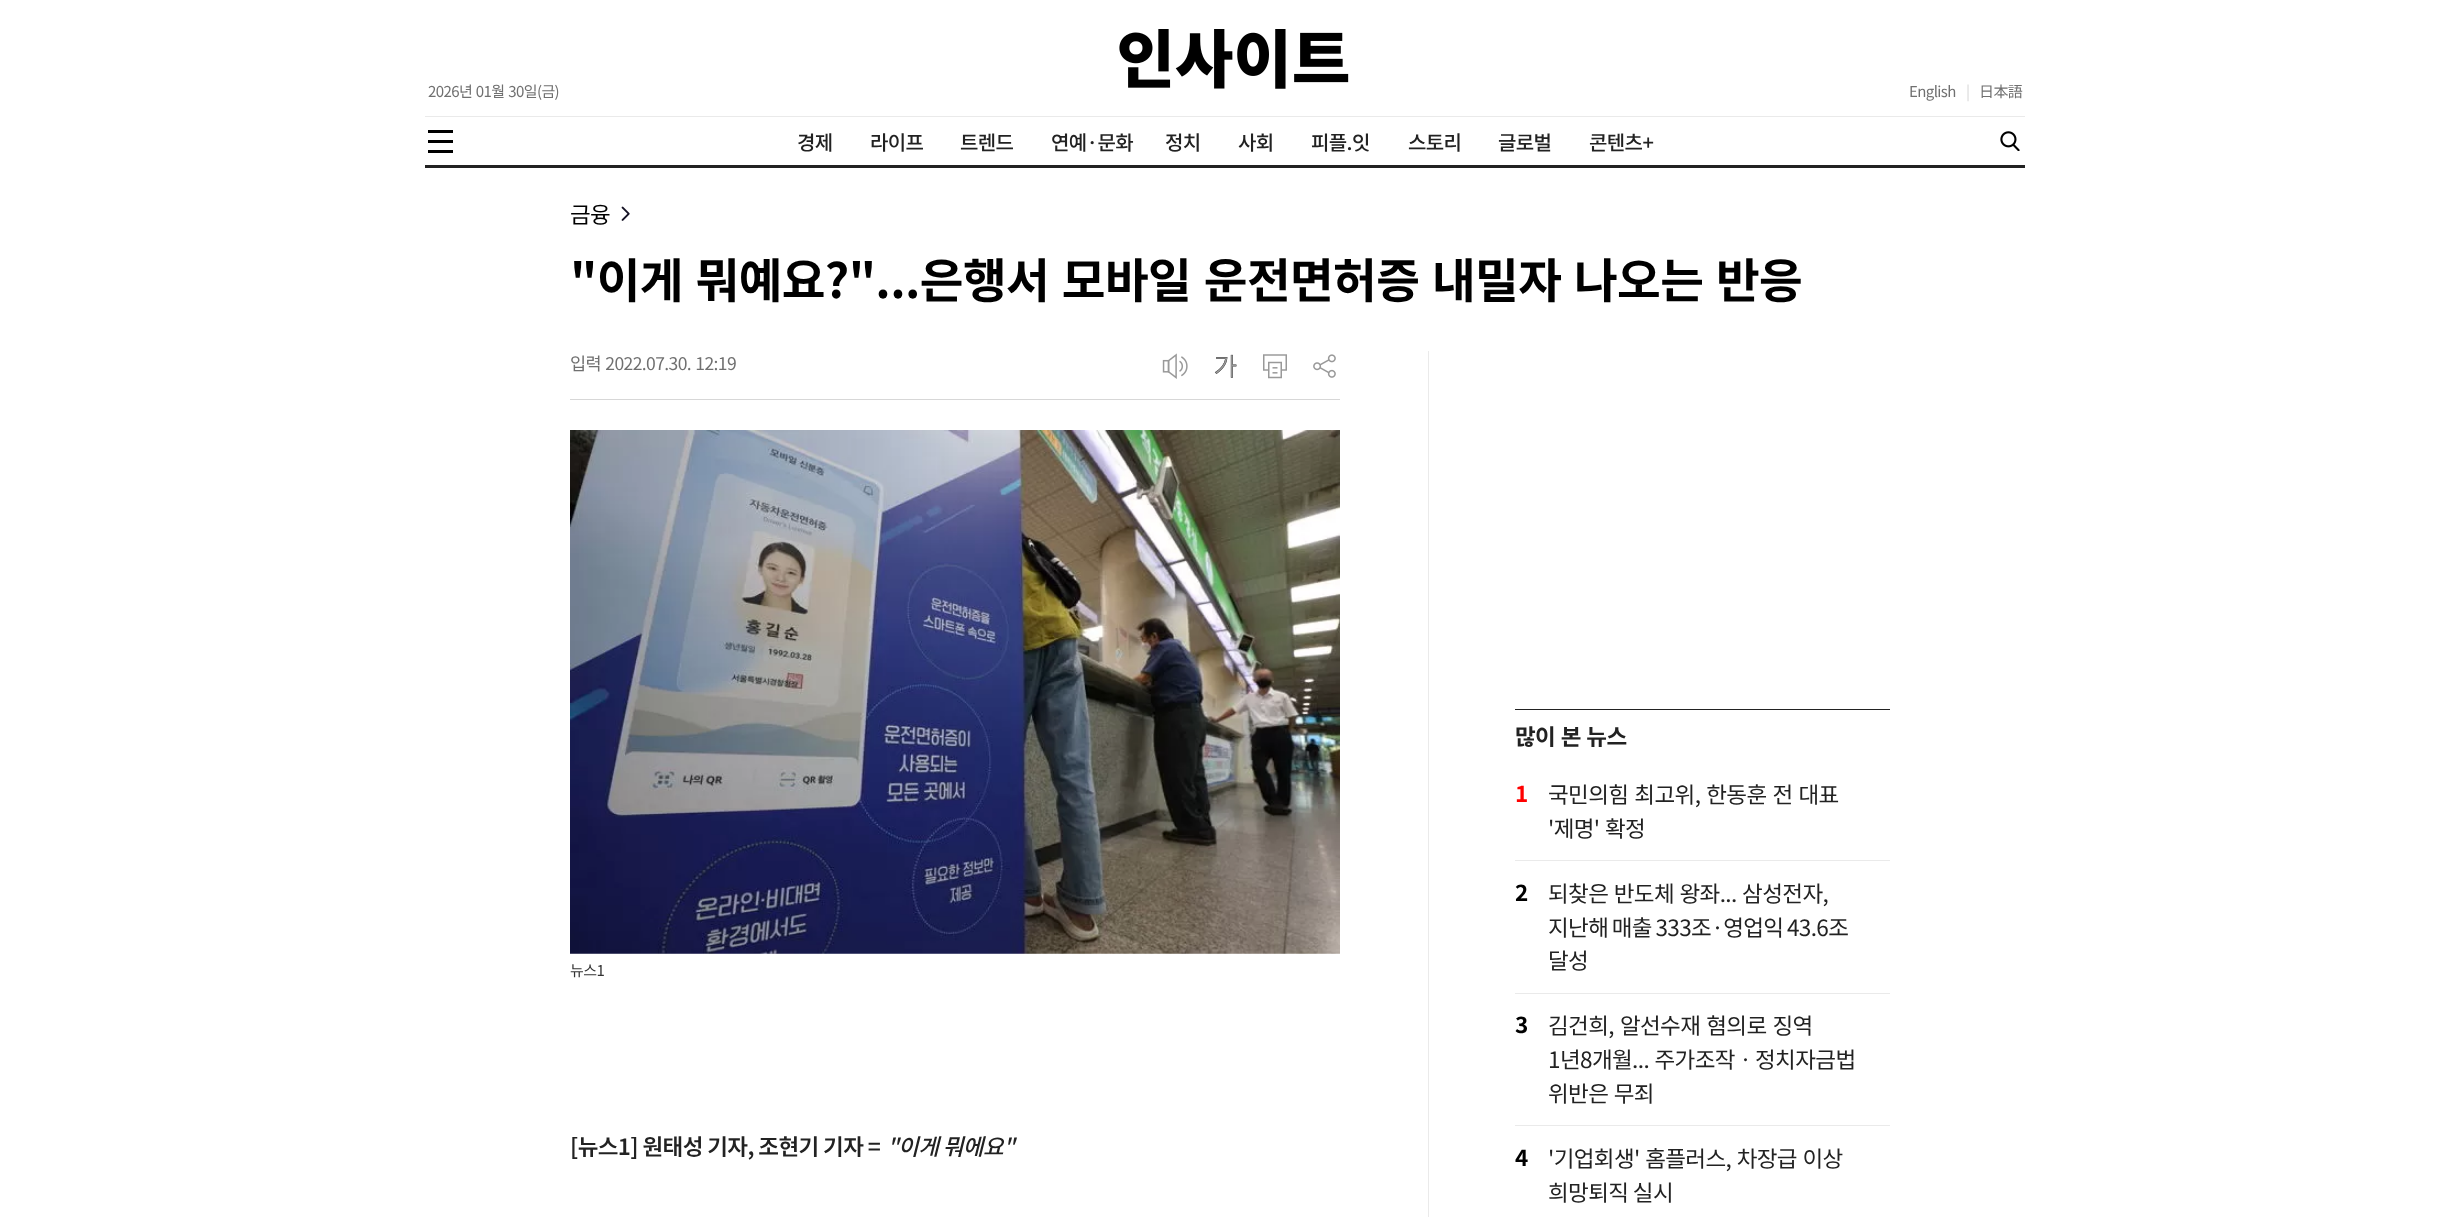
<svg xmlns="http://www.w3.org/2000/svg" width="2450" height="1217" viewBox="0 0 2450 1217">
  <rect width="100%" height="100%" fill="rgb(255,255,255)"/>
  <rect x="425" y="116" width="1600" height="1" fill="rgb(234,234,234)"/>
  <image x="1119" y="29" width="230" height="60" href="pic1.png"/>
  <g font-family="Noto Sans KR" font-size="15" letter-spacing="-0.6" fill="rgb(112,112,112)">
    <text x="428" y="97" word-spacing="1">2026년 01월 30일(금)</text>
    <text x="1909" y="97">English</text>
  </g>
  <text x="1966" y="97" font-family="Noto Sans KR" font-size="15" letter-spacing="-0.6" fill="rgb(215,215,215)">|</text>
  <text x="1979" y="97" font-family="Noto Sans KR" font-size="15" letter-spacing="-0.6" fill="rgb(112,112,112)">日本語</text>
  <rect x="425" y="165" width="1600" height="3" fill="rgb(34,34,34)"/>
  <rect x="428" y="130" width="25" height="3" fill="rgb(0,0,0)"/>
  <rect x="428" y="140" width="25" height="3" fill="rgb(0,0,0)"/>
  <rect x="428" y="150" width="25" height="3" fill="rgb(0,0,0)"/>
  <g font-family="Noto Sans KR" font-size="20" font-weight="500" letter-spacing="-0.6" fill="rgb(34,34,34)">
    <text x="797" y="150">경제</text>
    <text x="870" y="150">라이프</text>
    <text x="960" y="150">트렌드</text>
    <text x="1051" y="150">연예·문화</text>
    <text x="1165" y="150">정치</text>
    <text x="1238" y="150">사회</text>
    <text x="1311" y="150">피플.잇</text>
    <text x="1408" y="150">스토리</text>
    <text x="1498" y="150">글로벌</text>
    <text x="1589" y="150">콘텐츠+</text>
  </g>
  <image x="2000" y="131" width="20" height="20" href="pic2.png"/>
  <text x="570" y="223" font-family="Noto Sans KR" font-size="22.5" letter-spacing="-0.6" fill="rgb(0,0,0)">금융</text>
  <image x="621" y="206" width="9" height="15" href="pic3.png"/>
  <text x="570" y="298" word-spacing="2.5" font-family="Noto Sans KR" font-size="47.5" font-weight="bold" letter-spacing="-0.6" fill="rgb(0,0,0)">"이게 뭐예요?"...은행서 모바일 운전면허증 내밀자 나오는 반응</text>
  <rect x="1428" y="351" width="1" height="866" fill="rgb(234,234,234)"/>
  <rect x="570" y="399" width="770" height="1" fill="rgb(215,215,215)"/>
  <text x="570" y="370" word-spacing="1" font-family="Noto Sans KR" font-size="17.5" letter-spacing="-0.6" fill="rgb(112,112,112)">입력 2022.07.30. 12:19</text>
  <image x="1162" y="353" width="26" height="26" href="pic4.png"/>
  <image x="1214" y="354" width="23" height="24" href="pic5.png"/>
  <image x="1263" y="354" width="24" height="25" href="pic6.png"/>
  <image x="1313" y="354" width="23" height="24" href="pic7.png"/>
  <image x="570" y="430" width="770" height="524" href="pic8.png"/>
  <text x="570" y="976" font-family="'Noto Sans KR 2'" font-size="15" letter-spacing="-0.6" fill="rgb(51,51,51)">뉴스1</text>
  <text x="570" y="1155" font-family="Noto Sans KR" font-size="22.5" font-weight="600" letter-spacing="-0.6" fill="rgb(34,34,34)">[뉴스1] 원태성 기자, 조현기 기자 =</text>
  <text x="887" y="1155" font-family="Noto Sans KR" font-size="22.5" font-weight="500" font-style="italic" letter-spacing="-0.6" fill="rgb(34,34,34)">"이게 뭐에요"</text>
  <rect x="1515" y="709" width="375" height="1" fill="rgb(34,34,34)"/>
  <text x="1515" y="745" word-spacing="1" font-family="Noto Sans KR" font-size="22.5" font-weight="bold" letter-spacing="-0.6" fill="rgb(34,34,34)">많이 본 뉴스</text>
  <text x="1515" y="802" font-family="Noto Sans KR" font-size="22.5" font-weight="bold" letter-spacing="-0.6" fill="rgb(255,0,0)">1</text>
  <g font-family="Noto Sans KR" font-size="22.5" letter-spacing="-0.6" fill="rgb(34,34,34)">
    <text>
      <tspan x="1548" y="803" word-spacing="1.5">국민의힘 최고위, 한동훈 전 대표</tspan>
      <tspan x="1548" y="837" word-spacing="1">'제명' 확정</tspan>
    </text>
  </g>
  <rect x="1515" y="860" width="375" height="1" fill="rgb(234,234,234)"/>
  <text x="1515" y="901" font-family="Noto Sans KR" font-size="22.5" font-weight="bold" letter-spacing="-0.6" fill="rgb(0,0,0)">2</text>
  <g font-family="Noto Sans KR" font-size="22.5" letter-spacing="-0.6" fill="rgb(34,34,34)">
    <text>
      <tspan x="1548" y="902" word-spacing="1">되찾은 반도체 왕좌... 삼성전자,</tspan>
      <tspan x="1548" y="936" word-spacing="-1">지난해 매출 333조·영업익 43.6조</tspan>
      <tspan x="1548" y="969">달성</tspan>
    </text>
  </g>
  <rect x="1515" y="993" width="375" height="1" fill="rgb(234,234,234)"/>
  <text x="1515" y="1033" font-family="Noto Sans KR" font-size="22.5" font-weight="bold" letter-spacing="-0.6" fill="rgb(0,0,0)">3</text>
  <g font-family="Noto Sans KR" font-size="22.5" letter-spacing="-0.6" fill="rgb(34,34,34)">
    <text>
      <tspan x="1548" y="1034" word-spacing="1.5">김건희, 알선수재 혐의로 징역</tspan>
      <tspan x="1548" y="1068" word-spacing="1">1년8개월... 주가조작ㆍ정치자금법</tspan>
      <tspan x="1548" y="1102" word-spacing="1">위반은 무죄</tspan>
    </text>
  </g>
  <rect x="1515" y="1125" width="375" height="1" fill="rgb(234,234,234)"/>
  <text x="1515" y="1166" font-family="Noto Sans KR" font-size="22.5" font-weight="bold" letter-spacing="-0.6" fill="rgb(0,0,0)">4</text>
  <g font-family="Noto Sans KR" font-size="22.5" letter-spacing="-0.6" fill="rgb(34,34,34)">
    <text>
      <tspan x="1548" y="1167" word-spacing="1">'기업회생' 홈플러스, 차장급 이상</tspan>
      <tspan x="1548" y="1201">희망퇴직 실시</tspan>
    </text>
  </g>
</svg>
